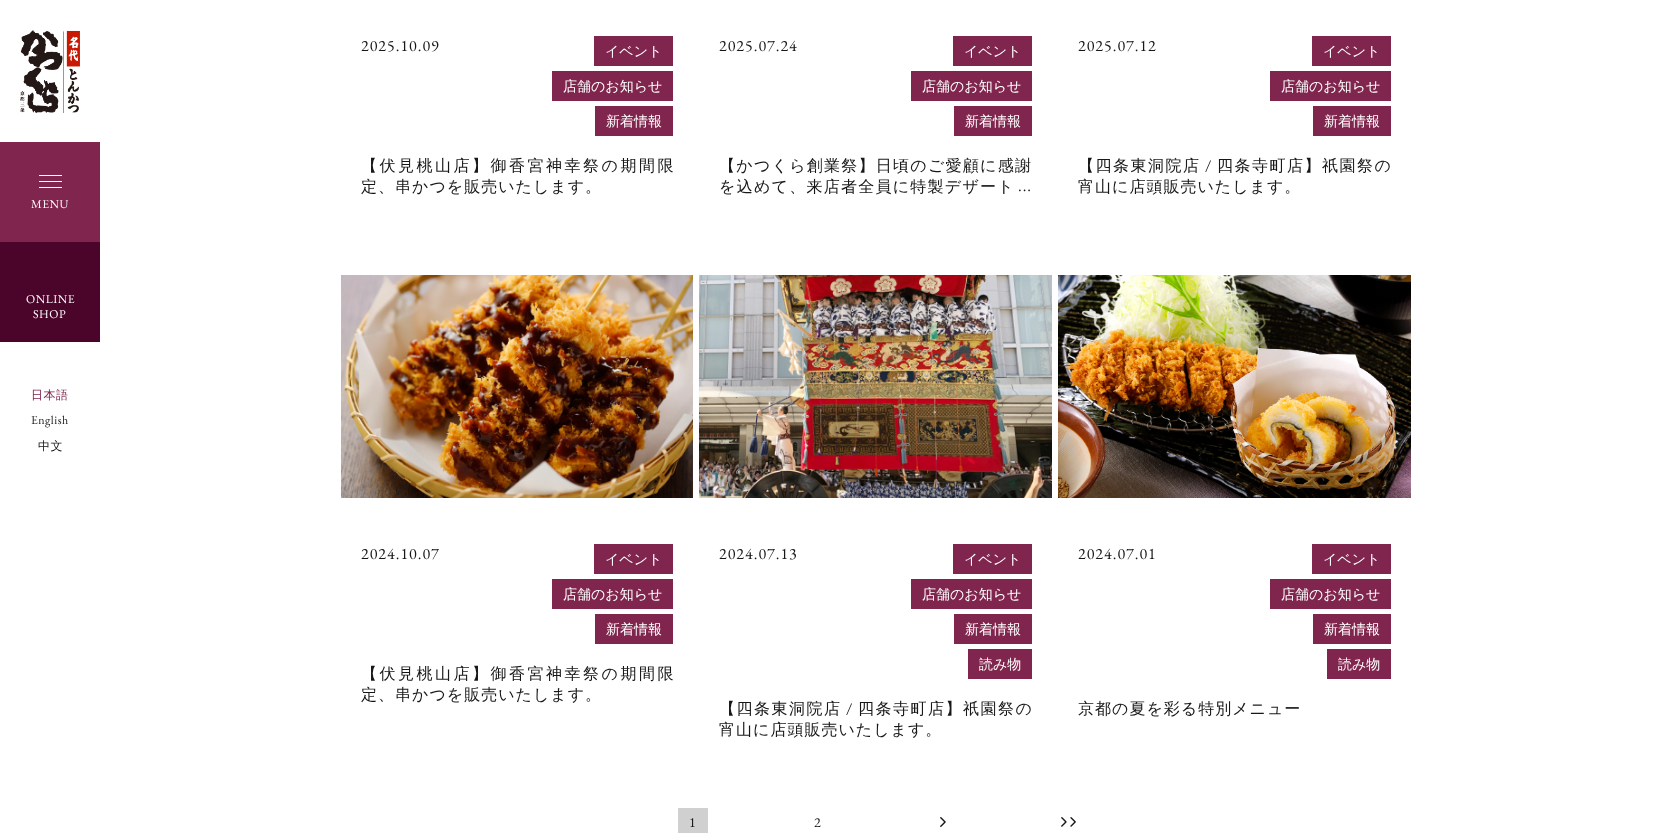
<svg xmlns="http://www.w3.org/2000/svg" width="1661" height="833" viewBox="0 0 1661 833">
  <rect width="100%" height="100%" fill="rgb(255,255,255)"/>
  <image x="20" y="30" width="60" height="83" href="pic1.png"/>
  <rect x="0" y="142" width="100" height="100" fill="rgb(128,37,78)"/>
  <rect x="39" y="181" width="23" height="1" fill="rgb(255,255,255)"/>
  <rect x="39" y="175" width="23" height="1" fill="rgb(255,255,255)"/>
  <rect x="39" y="187" width="23" height="1" fill="rgb(255,255,255)"/>
  <text x="31" y="208" font-family="EB Garamond" font-size="12" letter-spacing="0.5" fill="rgb(255,255,255)">MENU</text>
  <rect x="0" y="242" width="100" height="100" fill="rgb(75,5,42)"/>
  <g font-family="EB Garamond" font-size="12" letter-spacing="0.5" fill="rgb(255,255,255)">
    <text x="26" y="303">ONLINE</text>
    <text x="33" y="318">SHOP</text>
  </g>
  <text x="31" y="399" font-family="WenQuanYi Zen Hei" font-size="12" font-weight="500" letter-spacing="0.5" fill="rgb(128,37,78)">日本語</text>
  <text x="31" y="424" font-family="EB Garamond" font-size="12" letter-spacing="0.5" fill="rgb(23,23,23)">English</text>
  <text x="38" y="450" font-family="WenQuanYi Zen Hei" font-size="12" font-weight="500" letter-spacing="0.5" fill="rgb(23,23,23)">中文</text>
  <text x="361" y="51" font-family="EB Garamond" font-size="16" letter-spacing="1" fill="rgb(23,23,23)">2025.10.09</text>
  <rect x="594" y="36" width="79" height="30" fill="rgb(128,37,78)"/>
  <text x="605" y="56" font-family="WenQuanYi Zen Hei" font-size="14" font-weight="500" fill="rgb(255,255,255)">イベント</text>
  <rect x="552" y="71" width="121" height="30" fill="rgb(128,37,78)"/>
  <text x="563" y="91" font-family="WenQuanYi Zen Hei" font-size="14" font-weight="500" fill="rgb(255,255,255)">店舗のお知らせ</text>
  <rect x="595" y="106" width="78" height="30" fill="rgb(128,37,78)"/>
  <text x="606" y="126" font-family="WenQuanYi Zen Hei" font-size="14" font-weight="500" fill="rgb(255,255,255)">新着情報</text>
  <text x="361" y="171" font-family="WenQuanYi Zen Hei" font-size="16" font-weight="500" letter-spacing="2.5" fill="rgb(23,23,23)">【伏見桃山店】御香宮神幸祭の期間限</text>
  <text x="361" y="192" font-family="WenQuanYi Zen Hei" font-size="16" font-weight="500" letter-spacing="1" fill="rgb(23,23,23)">定、串かつを販売いたします。</text>
  <text x="719" y="51" font-family="EB Garamond" font-size="16" letter-spacing="1" fill="rgb(23,23,23)">2025.07.24</text>
  <rect x="953" y="36" width="79" height="30" fill="rgb(128,37,78)"/>
  <text x="964" y="56" font-family="WenQuanYi Zen Hei" font-size="14" font-weight="500" fill="rgb(255,255,255)">イベント</text>
  <rect x="911" y="71" width="121" height="30" fill="rgb(128,37,78)"/>
  <text x="922" y="91" font-family="WenQuanYi Zen Hei" font-size="14" font-weight="500" fill="rgb(255,255,255)">店舗のお知らせ</text>
  <rect x="954" y="106" width="78" height="30" fill="rgb(128,37,78)"/>
  <text x="965" y="126" font-family="WenQuanYi Zen Hei" font-size="14" font-weight="500" fill="rgb(255,255,255)">新着情報</text>
  <g font-family="WenQuanYi Zen Hei" font-size="16" font-weight="500" letter-spacing="1.25" fill="rgb(23,23,23)">
    <text>
      <tspan x="719" y="171">【かつくら創業祭】日頃のご愛顧に感謝</tspan>
      <tspan x="719" y="192">を込めて、来店者全員に特製デザート</tspan>
    </text>
  </g>
  <g font-family="EB Garamond" font-size="16" letter-spacing="1" fill="rgb(23,23,23)">
    <text x="1018" y="191">...</text>
    <text x="1078" y="51">2025.07.12</text>
  </g>
  <rect x="1312" y="36" width="79" height="30" fill="rgb(128,37,78)"/>
  <text x="1323" y="56" font-family="WenQuanYi Zen Hei" font-size="14" font-weight="500" fill="rgb(255,255,255)">イベント</text>
  <rect x="1270" y="71" width="121" height="30" fill="rgb(128,37,78)"/>
  <text x="1281" y="91" font-family="WenQuanYi Zen Hei" font-size="14" font-weight="500" fill="rgb(255,255,255)">店舗のお知らせ</text>
  <rect x="1313" y="106" width="78" height="30" fill="rgb(128,37,78)"/>
  <text x="1324" y="126" font-family="WenQuanYi Zen Hei" font-size="14" font-weight="500" fill="rgb(255,255,255)">新着情報</text>
  <text x="1078" y="171" font-family="WenQuanYi Zen Hei" font-size="16" font-weight="500" letter-spacing="1.5" fill="rgb(23,23,23)">【四条東洞院店</text>
  <text x="1205" y="171" font-family="EB Garamond" font-size="16" letter-spacing="1.5" fill="rgb(23,23,23)">/</text>
  <text x="1217" y="171" font-family="WenQuanYi Zen Hei" font-size="16" font-weight="500" letter-spacing="1.5" fill="rgb(23,23,23)">四条寺町店】祇園祭の</text>
  <text x="1078" y="192" font-family="WenQuanYi Zen Hei" font-size="16" font-weight="500" letter-spacing="1" fill="rgb(23,23,23)">宵山に店頭販売いたします。</text>
  <image x="341" y="275" width="352" height="223" href="pic2.png"/>
  <text x="361" y="559" font-family="EB Garamond" font-size="16" letter-spacing="1" fill="rgb(23,23,23)">2024.10.07</text>
  <rect x="594" y="544" width="79" height="30" fill="rgb(128,37,78)"/>
  <text x="605" y="564" font-family="WenQuanYi Zen Hei" font-size="14" font-weight="500" fill="rgb(255,255,255)">イベント</text>
  <rect x="552" y="579" width="121" height="30" fill="rgb(128,37,78)"/>
  <text x="563" y="599" font-family="WenQuanYi Zen Hei" font-size="14" font-weight="500" fill="rgb(255,255,255)">店舗のお知らせ</text>
  <rect x="595" y="614" width="78" height="30" fill="rgb(128,37,78)"/>
  <text x="606" y="634" font-family="WenQuanYi Zen Hei" font-size="14" font-weight="500" fill="rgb(255,255,255)">新着情報</text>
  <text x="361" y="679" font-family="WenQuanYi Zen Hei" font-size="16" font-weight="500" letter-spacing="2.5" fill="rgb(23,23,23)">【伏見桃山店】御香宮神幸祭の期間限</text>
  <text x="361" y="700" font-family="WenQuanYi Zen Hei" font-size="16" font-weight="500" letter-spacing="1" fill="rgb(23,23,23)">定、串かつを販売いたします。</text>
  <image x="699" y="275" width="353" height="223" href="pic3.png"/>
  <text x="719" y="559" font-family="EB Garamond" font-size="16" letter-spacing="1" fill="rgb(23,23,23)">2024.07.13</text>
  <rect x="953" y="544" width="79" height="30" fill="rgb(128,37,78)"/>
  <text x="964" y="564" font-family="WenQuanYi Zen Hei" font-size="14" font-weight="500" fill="rgb(255,255,255)">イベント</text>
  <rect x="911" y="579" width="121" height="30" fill="rgb(128,37,78)"/>
  <text x="922" y="599" font-family="WenQuanYi Zen Hei" font-size="14" font-weight="500" fill="rgb(255,255,255)">店舗のお知らせ</text>
  <rect x="954" y="614" width="78" height="30" fill="rgb(128,37,78)"/>
  <text x="965" y="634" font-family="WenQuanYi Zen Hei" font-size="14" font-weight="500" fill="rgb(255,255,255)">新着情報</text>
  <rect x="968" y="649" width="64" height="30" fill="rgb(128,37,78)"/>
  <text x="979" y="669" font-family="WenQuanYi Zen Hei" font-size="14" font-weight="500" fill="rgb(255,255,255)">読み物</text>
  <text x="719" y="714" font-family="WenQuanYi Zen Hei" font-size="16" font-weight="500" letter-spacing="1.5" fill="rgb(23,23,23)">【四条東洞院店</text>
  <text x="846" y="714" font-family="EB Garamond" font-size="16" letter-spacing="1.5" fill="rgb(23,23,23)">/</text>
  <text x="858" y="714" font-family="WenQuanYi Zen Hei" font-size="16" font-weight="500" letter-spacing="1.5" fill="rgb(23,23,23)">四条寺町店】祇園祭の</text>
  <text x="719" y="735" font-family="WenQuanYi Zen Hei" font-size="16" font-weight="500" letter-spacing="1" fill="rgb(23,23,23)">宵山に店頭販売いたします。</text>
  <image x="1058" y="275" width="353" height="223" href="pic4.png"/>
  <text x="1078" y="559" font-family="EB Garamond" font-size="16" letter-spacing="1" fill="rgb(23,23,23)">2024.07.01</text>
  <rect x="1312" y="544" width="79" height="30" fill="rgb(128,37,78)"/>
  <text x="1323" y="564" font-family="WenQuanYi Zen Hei" font-size="14" font-weight="500" fill="rgb(255,255,255)">イベント</text>
  <rect x="1270" y="579" width="121" height="30" fill="rgb(128,37,78)"/>
  <text x="1281" y="599" font-family="WenQuanYi Zen Hei" font-size="14" font-weight="500" fill="rgb(255,255,255)">店舗のお知らせ</text>
  <rect x="1313" y="614" width="78" height="30" fill="rgb(128,37,78)"/>
  <text x="1324" y="634" font-family="WenQuanYi Zen Hei" font-size="14" font-weight="500" fill="rgb(255,255,255)">新着情報</text>
  <rect x="1327" y="649" width="64" height="30" fill="rgb(128,37,78)"/>
  <text x="1338" y="669" font-family="WenQuanYi Zen Hei" font-size="14" font-weight="500" fill="rgb(255,255,255)">読み物</text>
  <text x="1078" y="714" font-family="WenQuanYi Zen Hei" font-size="16" font-weight="500" letter-spacing="1" fill="rgb(23,23,23)">京都の夏を彩る特別メニュー</text>
  <rect x="678" y="808" width="30" height="25" fill="rgb(208,208,208)"/>
  <g font-family="EB Garamond" font-size="14" letter-spacing="1" fill="rgb(23,23,23)">
    <text x="689" y="827">1</text>
    <text x="814" y="827">2</text>
  </g>
  <image x="940" y="817" width="6" height="10" href="pic5.png"/>
  <image x="1061" y="817" width="15" height="10" href="pic6.png"/>
</svg>
